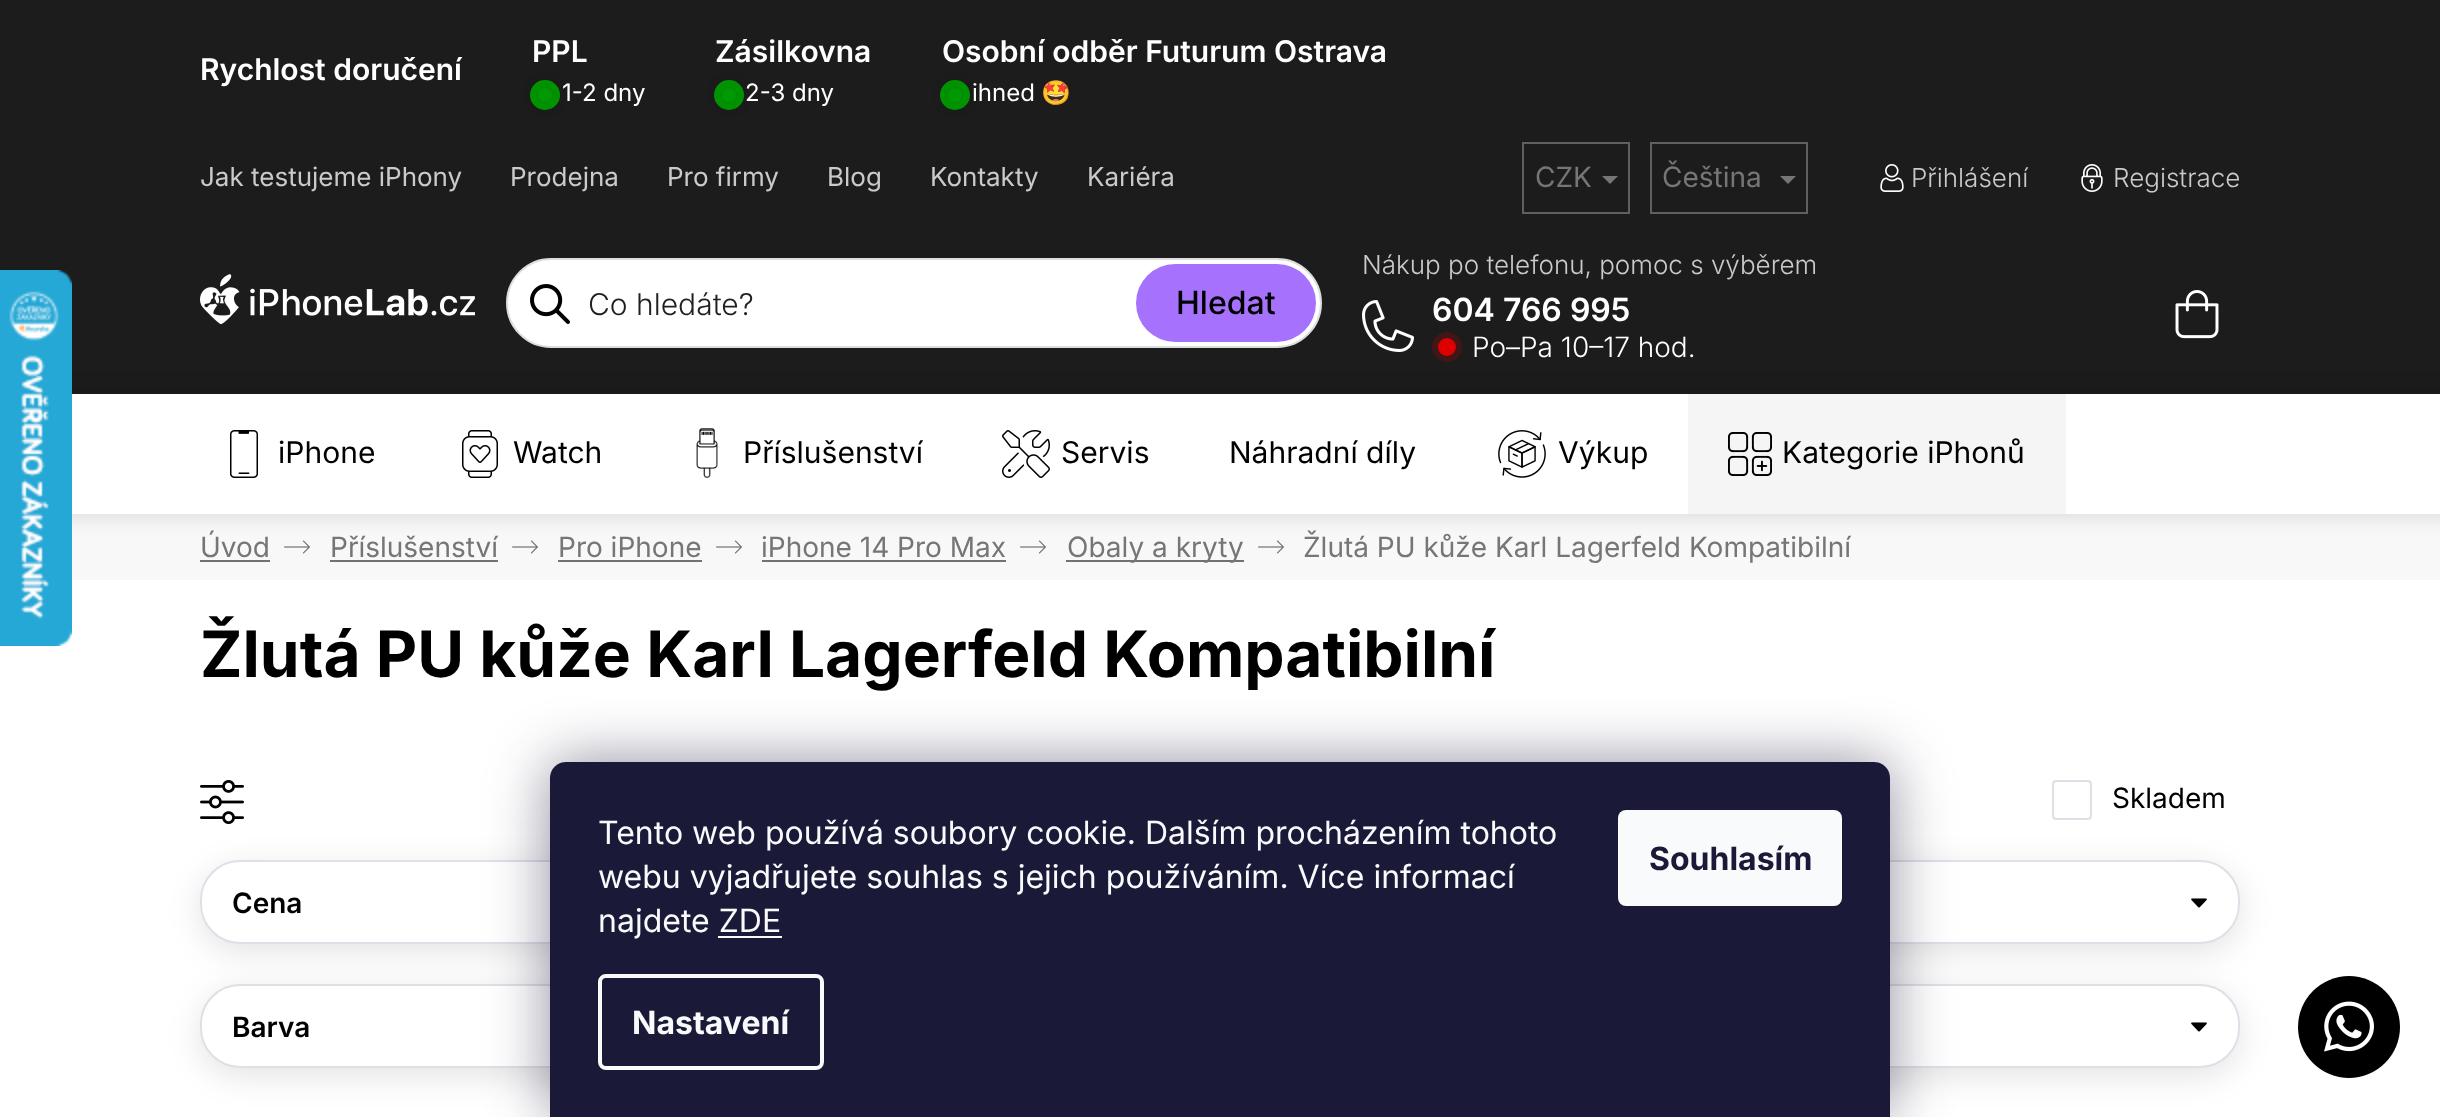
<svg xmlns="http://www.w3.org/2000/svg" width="2440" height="1117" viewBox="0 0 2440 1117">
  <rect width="100%" height="100%" fill="rgb(255,255,255)"/>
  <rect x="0" y="0" width="2440" height="394" fill="rgb(28,28,28)"/>
  <g font-family="Inter" font-size="30" font-weight="600" fill="rgb(255,255,255)">
    <text x="532" y="62">PPL</text>
    <text x="715" y="62">Zásilkovna</text>
    <text x="942" y="62">Osobní odběr Futurum Ostrava</text>
    <text x="200" y="80">Rychlost doručení</text>
  </g>
  <circle cx="545" cy="95" r="15" fill="rgb(0,153,1)"/>
  <rect x="538" y="88" width="14" height="14" rx="7" fill="rgba(0,0,0,0.3)" filter="blur(8px)"/>
  <circle cx="545" cy="95" r="7" fill="rgb(0,153,1)"/>
  <text x="562" y="101" font-family="Inter" font-size="24" fill="rgb(255,255,255)">1-2 dny</text>
  <circle cx="729" cy="95" r="15" fill="rgb(0,153,1)"/>
  <rect x="722" y="88" width="14" height="14" rx="7" fill="rgba(0,0,0,0.3)" filter="blur(8px)"/>
  <circle cx="729" cy="95" r="7" fill="rgb(0,153,1)"/>
  <text x="745" y="101" font-family="Inter" font-size="24" fill="rgb(255,255,255)">2-3 dny</text>
  <circle cx="955" cy="95" r="15" fill="rgb(0,153,1)"/>
  <rect x="948" y="88" width="14" height="14" rx="7" fill="rgba(0,0,0,0.3)" filter="blur(8px)"/>
  <circle cx="955" cy="95" r="7" fill="rgb(0,153,1)"/>
  <text x="972" y="101" font-family="Inter" font-size="24" fill="rgb(255,255,255)">ihned</text>
  <text x="1041" y="101" font-family="Noto Color Emoji" font-size="24" fill="rgb(255,255,255)">🤩</text>
  <circle cx="1447" cy="347" r="15" fill="rgb(66,22,22)"/>
  <rect x="72" y="514" width="2368" height="66" fill="rgb(248,248,248)"/>
  <rect x="-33" y="394" width="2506" height="120" fill="rgba(0,0,0,0.15)" filter="blur(11px)"/>
  <image x="0" y="270" width="72" height="376" href="pic1.png"/>
  <g font-family="Inter" font-size="26" fill="rgb(202,202,202)">
    <text x="200" y="186">Jak testujeme iPhony</text>
    <text x="510" y="186">Prodejna</text>
    <text x="667" y="186">Pro firmy</text>
    <text x="827" y="186">Blog</text>
    <text x="930" y="186">Kontakty</text>
    <text x="1087" y="186">Kariéra</text>
  </g>
  <rect x="1523" y="143" width="106" height="70" fill="none" stroke="rgb(96,96,96)" stroke-width="2"/>
  <text x="1535" y="187" font-family="Inter" font-size="28" fill="rgb(118,118,118)">CZK</text>
  <path d="M1602 176H1618L1610 184Z" fill="rgb(118,118,118)"/>
  <rect x="1651" y="143" width="156" height="70" fill="none" stroke="rgb(96,96,96)" stroke-width="2"/>
  <text x="1662" y="187" font-family="Inter" font-size="28" fill="rgb(118,118,118)">Čeština</text>
  <path d="M1780 176H1796L1788 184Z" fill="rgb(118,118,118)"/>
  <image x="1880" y="164" width="24" height="28" href="pic2.png"/>
  <text x="1911" y="187" font-family="Inter" font-size="26" font-weight="300" fill="rgb(202,202,202)">Přihlášení</text>
  <image x="2081" y="164" width="22" height="28" href="pic3.png"/>
  <text x="2113" y="187" font-family="Inter" font-size="26" font-weight="300" fill="rgb(202,202,202)">Registrace</text>
  <image x="200" y="274" width="275" height="51" href="pic4.png"/>
  <rect x="507" y="259" width="814" height="88" rx="44" fill="rgb(255,255,255)" stroke="rgb(221,221,221)" stroke-width="2"/>
  <image x="530" y="284" width="40" height="40" href="pic5.png"/>
  <text x="588" y="315" font-family="Inter" font-size="30" font-weight="300" fill="rgb(32,32,32)">Co hledáte?</text>
  <rect x="1136" y="264" width="180" height="78" rx="39" fill="rgb(166,114,253)"/>
  <text x="1176" y="314" font-family="Inter" font-size="32" font-weight="500" fill="rgb(0,0,0)">Hledat</text>
  <text x="1362" y="274" font-family="Inter" font-size="26" font-weight="300" fill="rgb(202,202,202)">Nákup po telefonu, pomoc s výběrem</text>
  <image x="1362" y="300" width="52" height="52" href="pic6.png"/>
  <text x="1432" y="321" font-family="Inter" font-size="32" font-weight="600" fill="rgb(255,255,255)">604 766 995</text>
  <circle cx="1447" cy="347" r="9" fill="rgb(220,0,0)"/>
  <text x="1472" y="357" font-family="Inter" font-size="28" font-weight="300" fill="rgb(255,255,255)">Po–Pa 10–17 hod.</text>
  <image x="2175" y="290" width="44" height="49" href="pic7.png"/>
  <rect x="72" y="394" width="2368" height="120" fill="rgb(255,255,255)"/>
  <image x="230" y="430" width="28" height="48" href="pic8.png"/>
  <text x="278" y="463" font-family="Inter" font-size="30" fill="rgb(0,0,0)">iPhone</text>
  <image x="462" y="430" width="36" height="48" href="pic9.png"/>
  <text x="513" y="463" font-family="Inter" font-size="30" fill="rgb(0,0,0)">Watch</text>
  <image x="696" y="428" width="22" height="50" href="pic10.png"/>
  <text x="743" y="463" font-family="Inter" font-size="30" fill="rgb(0,0,0)">Příslušenství</text>
  <image x="1002" y="430" width="48" height="48" href="pic11.png"/>
  <g font-family="Inter" font-size="30" fill="rgb(0,0,0)">
    <text x="1061" y="463">Servis</text>
    <text x="1229" y="463">Náhradní díly</text>
  </g>
  <image x="1498" y="430" width="48" height="48" href="pic12.png"/>
  <text x="1558" y="463" font-family="Inter" font-size="30" fill="rgb(0,0,0)">Výkup</text>
  <rect x="1688" y="394" width="378" height="120" fill="rgb(245,245,245)"/>
  <image x="1728" y="432" width="44" height="44" href="pic13.png"/>
  <text x="1782" y="463" font-family="Inter" font-size="30" fill="rgb(0,0,0)">Kategorie iPhonů</text>
  <rect x="200" y="560" width="70" height="2" fill="rgb(113,113,113)"/>
  <text x="200" y="557" font-family="Inter" font-size="28" fill="rgb(118,118,118)">Úvod</text>
  <image x="284" y="540" width="26" height="14" href="pic14.png"/>
  <text x="330" y="557" font-family="Inter" font-size="28" fill="rgb(118,118,118)">Příslušenství</text>
  <rect x="330" y="560" width="168" height="2" fill="rgb(113,113,113)"/>
  <image x="512" y="540" width="26" height="14" href="pic14.png"/>
  <text x="558" y="557" font-family="Inter" font-size="28" fill="rgb(118,118,118)">Pro iPhone</text>
  <rect x="558" y="560" width="144" height="2" fill="rgb(113,113,113)"/>
  <image x="716" y="540" width="26" height="14" href="pic14.png"/>
  <text x="761" y="557" font-family="Inter" font-size="28" fill="rgb(118,118,118)">iPhone 14 Pro Max</text>
  <rect x="762" y="560" width="244" height="2" fill="rgb(113,113,113)"/>
  <image x="1020" y="540" width="26" height="14" href="pic14.png"/>
  <rect x="1066" y="560" width="178" height="2" fill="rgb(113,113,113)"/>
  <text x="1067" y="557" font-family="Inter" font-size="28" fill="rgb(118,118,118)">Obaly a kryty</text>
  <image x="1258" y="540" width="26" height="14" href="pic14.png"/>
  <text x="1303" y="557" font-family="Inter" font-size="28" fill="rgb(118,118,118)">Žlutá PU kůže Karl Lagerfeld Kompatibilní</text>
  <text x="200" y="677" font-family="Inter" font-size="64" font-weight="bold" fill="rgb(0,0,0)">Žlutá PU kůže Karl Lagerfeld Kompatibilní</text>
  <image x="200" y="780" width="44" height="44" href="pic15.png"/>
  <rect x="2053" y="781" width="38" height="38" rx="3" fill="none" stroke="rgb(223,223,232)" stroke-width="2"/>
  <text x="2112" y="808" font-family="Inter" font-size="28" fill="rgb(0,0,0)">Skladem</text>
  <rect x="200" y="868" width="654" height="84" rx="40" fill="rgba(0,0,0,0.11)" filter="blur(16px)"/>
  <rect x="201" y="861" width="652" height="82" rx="39" fill="rgb(255,255,255)" stroke="rgb(223,223,232)" stroke-width="2"/>
  <text x="232" y="913" font-family="Inter" font-size="28" font-weight="600" fill="rgb(0,0,0)">Cena</text>
  <rect x="1586" y="868" width="654" height="84" rx="40" fill="rgba(0,0,0,0.11)" filter="blur(16px)"/>
  <rect x="1587" y="861" width="652" height="82" rx="39" fill="rgb(255,255,255)" stroke="rgb(223,223,232)" stroke-width="2"/>
  <image x="2191" y="898" width="16" height="10" href="pic16.png"/>
  <rect x="200" y="992" width="654" height="84" rx="40" fill="rgba(0,0,0,0.11)" filter="blur(16px)"/>
  <rect x="201" y="985" width="652" height="82" rx="39" fill="rgb(255,255,255)" stroke="rgb(223,223,232)" stroke-width="2"/>
  <text x="232" y="1037" font-family="Inter" font-size="28" font-weight="600" fill="rgb(0,0,0)">Barva</text>
  <rect x="1586" y="992" width="654" height="84" rx="40" fill="rgba(0,0,0,0.11)" filter="blur(16px)"/>
  <rect x="1587" y="985" width="652" height="82" rx="39" fill="rgb(255,255,255)" stroke="rgb(223,223,232)" stroke-width="2"/>
  <image x="2191" y="1022" width="16" height="10" href="pic16.png"/>
  <rect x="550" y="762" width="1340" height="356" rx="16" fill="rgba(27,25,57,0.5)" filter="blur(30px)"/>
  <path d="M566 762H1874C1883 762 1890 769 1890 778V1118H550V778C550 769 557 762 566 762Z" fill="rgb(26,25,55)"/>
  <g font-family="Inter" font-size="32" fill="rgb(248,250,251)">
    <text>
      <tspan x="598" y="844">Tento web používá soubory cookie. Dalším procházením tohoto</tspan>
      <tspan x="598" y="888">webu vyjadřujete souhlas s jejich používáním. Více informací</tspan>
      <tspan x="598" y="932">najdete ZDE</tspan>
    </text>
  </g>
  <rect x="718" y="936" width="64" height="2" fill="rgb(248,250,251)"/>
  <rect x="600" y="976" width="222" height="92" rx="6" fill="none" stroke="rgb(248,250,251)" stroke-width="4"/>
  <text x="632" y="1034" font-family="Inter" font-size="32" font-weight="bold" fill="rgb(248,250,251)">Nastavení</text>
  <rect x="1618" y="810" width="224" height="96" rx="8" fill="rgb(248,250,251)"/>
  <text x="1649" y="870" font-family="Inter" font-size="32" font-weight="bold" fill="rgb(26,25,55)">Souhlasím</text>
  <circle cx="2349" cy="1027" r="51" fill="rgb(0,0,0)"/>
  <image x="2324" y="1001" width="50" height="51" href="pic17.png"/>
</svg>
